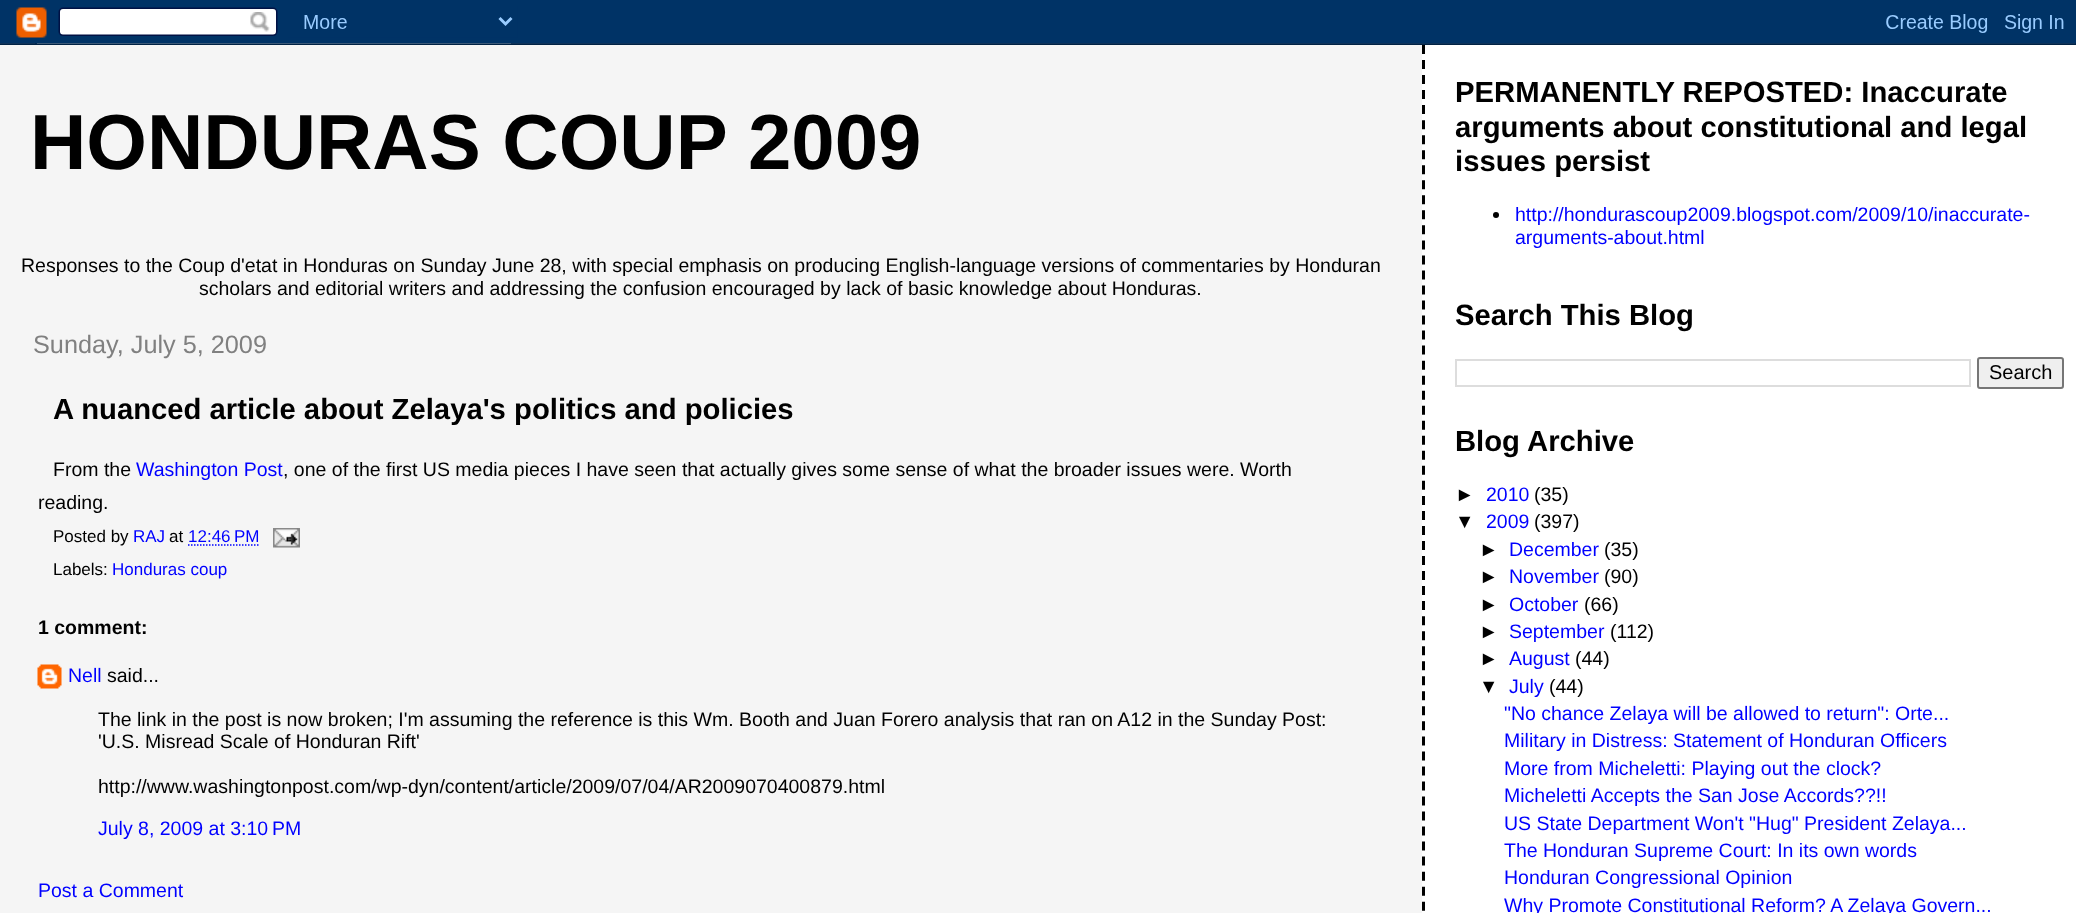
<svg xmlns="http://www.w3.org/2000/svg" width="2076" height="913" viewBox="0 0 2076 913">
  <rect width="100%" height="100%" fill="rgb(245,245,245)"/>
  <image x="0" y="0" width="2076" height="45" href="pic1.png"/>
  <text x="30" y="169" font-family="Liberation Sans" font-size="78" font-weight="bold" fill="rgb(0,0,0)">HONDURAS COUP 2009</text>
  <g font-family="Liberation Sans" font-size="19.5" fill="rgb(0,0,0)">
    <text x="21" y="272">Responses to the Coup d'etat in Honduras on Sunday June 28, with special emphasis on producing English-language versions of commentaries by Honduran</text>
    <text x="199" y="295">scholars and editorial writers and addressing the confusion encouraged by lack of basic knowledge about Honduras.</text>
  </g>
  <text x="33" y="353" font-family="Liberation Sans" font-size="25.25" fill="rgb(128,128,128)">Sunday, July 5, 2009</text>
  <text x="53" y="419" font-family="Liberation Sans" font-size="29.25" font-weight="bold" fill="rgb(0,0,0)">A nuanced article about Zelaya's politics and policies</text>
  <text x="53" y="476" font-family="Liberation Sans" font-size="19.5" fill="rgb(0,0,0)">From the</text>
  <text x="136" y="476" font-family="Liberation Sans" font-size="19.5" fill="rgb(0,0,255)">Washington Post</text>
  <g font-family="Liberation Sans" font-size="19.5" fill="rgb(0,0,0)">
    <text x="283" y="476">, one of the first US media pieces I have seen that actually gives some sense of what the broader issues were. Worth</text>
    <text x="38" y="509">reading.</text>
  </g>
  <text x="53" y="542" font-family="Liberation Sans" font-size="17" fill="rgb(0,0,0)">Posted by</text>
  <text x="133" y="542" font-family="Liberation Sans" font-size="17" fill="rgb(0,0,255)">RAJ</text>
  <text x="169" y="542" font-family="Liberation Sans" font-size="17" fill="rgb(0,0,0)">at</text>
  <text x="188" y="542" font-family="Liberation Sans" font-size="17" fill="rgb(0,0,255)">12:46 PM</text>
  <path d="M188 545H259.5" fill="none" stroke="rgb(0,0,255)" stroke-width="1.5" stroke-dasharray="1.5 1.5"/>
  <image x="273" y="528" width="27" height="20" href="pic2.png"/>
  <text x="53" y="575" font-family="Liberation Sans" font-size="17" fill="rgb(0,0,0)">Labels:</text>
  <text x="112" y="575" font-family="Liberation Sans" font-size="17" fill="rgb(0,0,255)">Honduras coup</text>
  <text x="38" y="634" font-family="Liberation Sans" font-size="19.5" font-weight="bold" fill="rgb(0,0,0)">1 comment:</text>
  <image x="37" y="664" width="25" height="25" href="pic3.png"/>
  <text x="68" y="682" font-family="Liberation Sans" font-size="19.5" fill="rgb(0,0,255)">Nell</text>
  <g font-family="Liberation Sans" font-size="19.5" fill="rgb(0,0,0)">
    <text x="107" y="682">said...</text>
    <text>
      <tspan x="98" y="726">The link in the post is now broken; I'm assuming the reference is this Wm. Booth and Juan Forero analysis that ran on A12 in the Sunday Post:</tspan>
      <tspan x="98" y="748">'U.S. Misread Scale of Honduran Rift'</tspan>
    </text>
    <text x="98" y="793">http://www.washingtonpost.com/wp-dyn/content/article/2009/07/04/AR2009070400879.html</text>
  </g>
  <g font-family="Liberation Sans" font-size="19.5" fill="rgb(0,0,255)">
    <text x="98" y="835">July 8, 2009 at 3:10 PM</text>
    <text x="38" y="897">Post a Comment</text>
  </g>
  <rect x="1422" y="45" width="654" height="868" fill="rgb(255,255,255)"/>
  <path d="M1423.5 45V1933.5" fill="none" stroke="rgb(0,0,0)" stroke-width="3" stroke-dasharray="9 6.03"/>
  <g font-family="Liberation Sans" font-size="29.25" font-weight="bold" fill="rgb(0,0,0)">
    <text>
      <tspan x="1455" y="102">PERMANENTLY REPOSTED: Inaccurate</tspan>
      <tspan x="1455" y="137">arguments about constitutional and legal</tspan>
      <tspan x="1455" y="171">issues persist</tspan>
    </text>
  </g>
  <circle cx="1496" cy="215" r="3" fill="rgb(0,0,0)"/>
  <g font-family="Liberation Sans" font-size="19.5" fill="rgb(0,0,255)">
    <text>
      <tspan x="1515" y="221">http://hondurascoup2009.blogspot.com/2009/10/inaccurate-</tspan>
      <tspan x="1515" y="244">arguments-about.html</tspan>
    </text>
  </g>
  <text x="1455" y="325" font-family="Liberation Sans" font-size="29.25" font-weight="bold" fill="rgb(0,0,0)">Search This Blog</text>
  <rect x="1456" y="360" width="514" height="26" fill="none" stroke="rgb(221,221,221)" stroke-width="2"/>
  <rect x="1978" y="358" width="85" height="30" rx="2" fill="rgb(239,239,239)" stroke="rgb(118,118,118)" stroke-width="2"/>
  <text x="1989" y="379" font-family="Liberation Sans" font-size="20" fill="rgb(0,0,0)">Search</text>
  <text x="1455" y="451" font-family="Liberation Sans" font-size="29.25" font-weight="bold" fill="rgb(0,0,0)">Blog Archive</text>
  <text x="1455" y="501" font-family="Liberation Sans" font-size="19.5" fill="rgb(0,0,0)">►</text>
  <text x="1486" y="501" font-family="Liberation Sans" font-size="19.5" fill="rgb(0,0,255)">2010</text>
  <g font-family="Liberation Sans" font-size="19.5" fill="rgb(0,0,0)">
    <text x="1534" y="501">(35)</text>
    <text x="1455" y="528">▼</text>
  </g>
  <text x="1486" y="528" font-family="Liberation Sans" font-size="19.5" fill="rgb(0,0,255)">2009</text>
  <g font-family="Liberation Sans" font-size="19.5" fill="rgb(0,0,0)">
    <text x="1534" y="528">(397)</text>
    <text x="1479" y="556">►</text>
  </g>
  <text x="1509" y="556" font-family="Liberation Sans" font-size="19.5" fill="rgb(0,0,255)">December</text>
  <g font-family="Liberation Sans" font-size="19.5" fill="rgb(0,0,0)">
    <text x="1604" y="556">(35)</text>
    <text x="1479" y="583">►</text>
  </g>
  <text x="1509" y="583" font-family="Liberation Sans" font-size="19.5" fill="rgb(0,0,255)">November</text>
  <g font-family="Liberation Sans" font-size="19.5" fill="rgb(0,0,0)">
    <text x="1604" y="583">(90)</text>
    <text x="1479" y="611">►</text>
  </g>
  <text x="1509" y="611" font-family="Liberation Sans" font-size="19.5" fill="rgb(0,0,255)">October</text>
  <g font-family="Liberation Sans" font-size="19.5" fill="rgb(0,0,0)">
    <text x="1584" y="611">(66)</text>
    <text x="1479" y="638">►</text>
  </g>
  <text x="1509" y="638" font-family="Liberation Sans" font-size="19.5" fill="rgb(0,0,255)">September</text>
  <g font-family="Liberation Sans" font-size="19.5" fill="rgb(0,0,0)">
    <text x="1610" y="638">(112)</text>
    <text x="1479" y="665">►</text>
  </g>
  <text x="1509" y="665" font-family="Liberation Sans" font-size="19.5" fill="rgb(0,0,255)">August</text>
  <g font-family="Liberation Sans" font-size="19.5" fill="rgb(0,0,0)">
    <text x="1575" y="665">(44)</text>
    <text x="1479" y="693">▼</text>
  </g>
  <text x="1509" y="693" font-family="Liberation Sans" font-size="19.5" fill="rgb(0,0,255)">July</text>
  <text x="1549" y="693" font-family="Liberation Sans" font-size="19.5" fill="rgb(0,0,0)">(44)</text>
  <g font-family="Liberation Sans" font-size="19.5" fill="rgb(0,0,255)">
    <text>
      <tspan x="1504" y="720">"No chance Zelaya will be allowed to return": Orte...</tspan>
      <tspan x="1504" y="747">Military in Distress: Statement of Honduran Officers</tspan>
      <tspan x="1504" y="775">More from Micheletti: Playing out the clock?</tspan>
      <tspan x="1504" y="802">Micheletti Accepts the San Jose Accords??!!</tspan>
      <tspan x="1504" y="830">US State Department Won't "Hug" President Zelaya...</tspan>
      <tspan x="1504" y="857">The Honduran Supreme Court: In its own words</tspan>
      <tspan x="1504" y="884">Honduran Congressional Opinion</tspan>
      <tspan x="1504" y="912">Why Promote Constitutional Reform? A Zelaya Govern...</tspan>
    </text>
  </g>
</svg>
